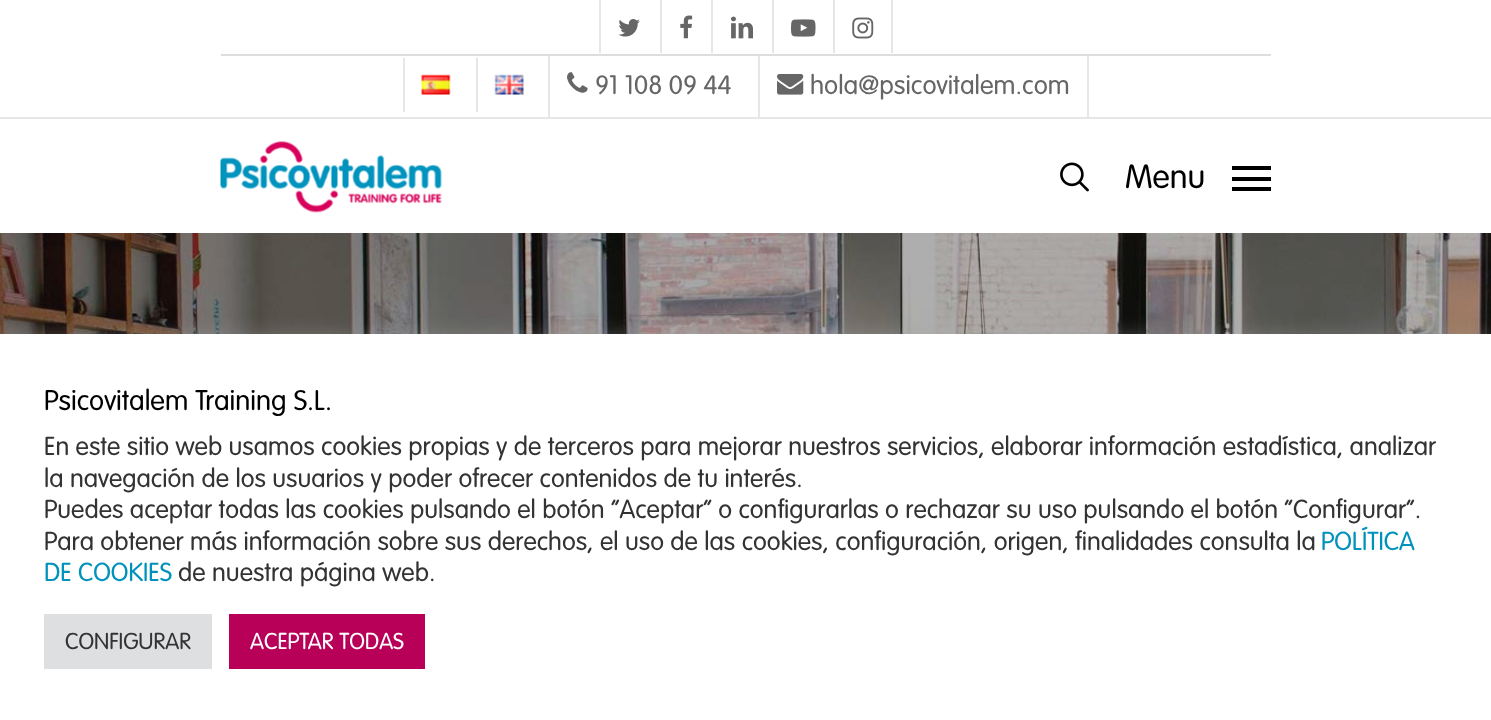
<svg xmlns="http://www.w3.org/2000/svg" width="1491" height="720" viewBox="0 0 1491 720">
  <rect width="100%" height="100%" fill="rgb(255,255,255)"/>
  <image x="0" y="232" width="1491" height="102" href="pic12.png"/>
  <rect x="0" y="232" width="1491" height="1" fill="rgba(255,255,255,0.96)"/>
  <rect x="0" y="117" width="1491" height="2" fill="rgb(230,230,230)"/>
  <rect x="599" y="0" width="2" height="53" fill="rgb(230,230,230)"/>
  <image x="618" y="19" width="22" height="18" href="pic1.png"/>
  <rect x="660" y="0" width="2" height="53" fill="rgb(230,230,230)"/>
  <image x="680" y="15" width="13" height="24" href="pic2.png"/>
  <rect x="711" y="0" width="2" height="53" fill="rgb(230,230,230)"/>
  <image x="731" y="16" width="23" height="23" href="pic3.png"/>
  <rect x="772" y="0" width="2" height="53" fill="rgb(230,230,230)"/>
  <image x="791" y="19" width="25" height="18" href="pic4.png"/>
  <rect x="891" y="0" width="2" height="53" fill="rgb(230,230,230)"/>
  <rect x="833" y="0" width="2" height="53" fill="rgb(230,230,230)"/>
  <image x="852" y="17" width="22" height="22" href="pic5.png"/>
  <rect x="221" y="54" width="1050" height="2" fill="rgb(221,221,221)"/>
  <rect x="403" y="58" width="2" height="54" fill="rgb(230,230,230)"/>
  <image x="421" y="74" width="30" height="21" href="pic6.png"/>
  <rect x="476" y="58" width="2" height="54" fill="rgb(230,230,230)"/>
  <image x="494" y="74" width="30" height="21" href="pic7.png"/>
  <rect x="548" y="56" width="2" height="61" fill="rgb(230,230,230)"/>
  <image x="567" y="72" width="21" height="21" href="pic8.png"/>
  <text x="595" y="94" font-family="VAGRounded" font-size="26.25" font-weight="300" fill="rgb(102,102,102)">91 108 09 44</text>
  <rect x="1087" y="56" width="2" height="61" fill="rgb(230,230,230)"/>
  <rect x="758" y="56" width="2" height="61" fill="rgb(230,230,230)"/>
  <image x="777" y="74" width="27" height="21" href="pic9.png"/>
  <text x="810" y="94" font-family="VAGRounded" font-size="26.25" font-weight="300" fill="rgb(102,102,102)">hola@psicovitalem.com</text>
  <image x="220" y="141" width="222" height="72" href="pic10.png"/>
  <image x="1060" y="162" width="29" height="30" href="pic11.png"/>
  <text x="1125" y="188" font-family="VAGRounded" font-size="33" font-weight="300" fill="rgb(0,0,0)">Menu</text>
  <rect x="1232" y="166" width="39" height="4" fill="rgb(0,0,0)"/>
  <rect x="1232" y="187" width="39" height="4" fill="rgb(0,0,0)"/>
  <rect x="1232" y="177" width="39" height="4" fill="rgb(0,0,0)"/>
  <rect x="0" y="333" width="1491" height="386" fill="rgba(172,171,171,0.3)" filter="blur(9px)"/>
  <rect x="0" y="334" width="1491" height="386" fill="rgb(255,255,255)"/>
  <text x="44" y="410" font-family="VAGRounded" font-size="28" font-weight="300" fill="rgb(0,0,0)">Psicovitalem Training S.L.</text>
  <g font-family="VAGRounded" font-size="25.67" font-weight="300" fill="rgb(51,51,51)">
    <text>
      <tspan x="44" y="455">En este sitio web usamos cookies propias y de terceros para mejorar nuestros servicios, elaborar información estadística, analizar</tspan>
      <tspan x="44" y="487">la navegación de los usuarios y poder ofrecer contenidos de tu interés.</tspan>
      <tspan x="44" y="518">Puedes aceptar todas las cookies pulsando el botón “Aceptar” o configurarlas o rechazar su uso pulsando el botón “Configurar”.</tspan>
      <tspan x="44" y="550">Para obtener más información sobre sus derechos, el uso de las cookies, configuración, origen, finalidades consulta la</tspan>
    </text>
  </g>
  <g font-family="VAGRounded" font-size="25.67" font-weight="300" fill="rgb(0,146,187)">
    <text x="1321" y="550">POLÍTICA</text>
    <text x="44" y="581">DE COOKIES</text>
  </g>
  <text x="178" y="581" font-family="VAGRounded" font-size="25.67" font-weight="300" fill="rgb(51,51,51)">de nuestra página web.</text>
  <rect x="44" y="614" width="168" height="55" fill="rgb(222,223,224)"/>
  <text x="65" y="649" font-family="VAGRounded" font-size="22.75" font-weight="300" fill="rgb(51,51,51)">CONFIGURAR</text>
  <rect x="229" y="614" width="196" height="55" fill="rgb(184,0,89)"/>
  <text x="250" y="649" font-family="VAGRounded" font-size="22.75" font-weight="300" fill="rgb(255,255,255)">ACEPTAR TODAS</text>
</svg>
